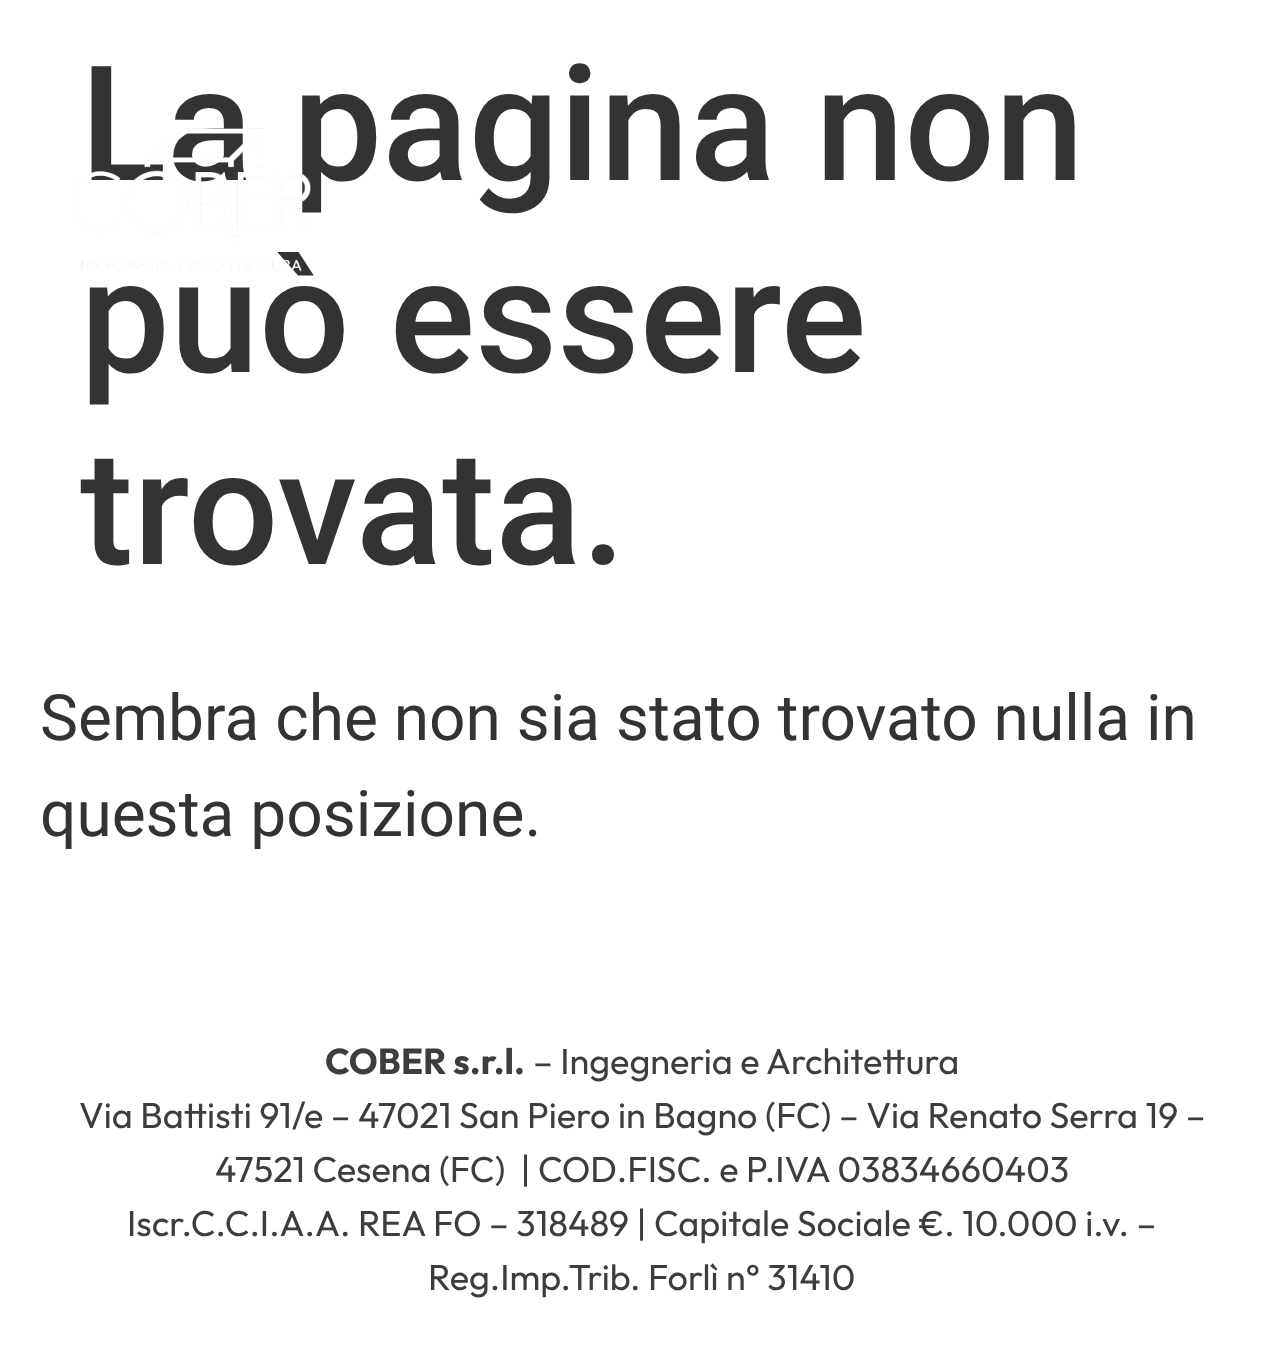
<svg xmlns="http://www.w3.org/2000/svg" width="1284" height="1349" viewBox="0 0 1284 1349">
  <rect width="100%" height="100%" fill="rgb(255,255,255)"/>
  <g font-family="Roboto" font-size="160" font-weight="500" fill="rgb(51,51,51)">
    <text>
      <tspan x="80" y="180">La pagina non</tspan>
      <tspan x="80" y="372">può essere</tspan>
      <tspan x="80" y="564">trovata.</tspan>
    </text>
  </g>
  <g font-family="Roboto" font-size="64" fill="rgb(51,51,51)">
    <text>
      <tspan x="40" y="740">Sembra che non sia stato trovato nulla in</tspan>
      <tspan x="40" y="836">questa posizione.</tspan>
    </text>
  </g>
  <image x="73" y="128" width="240" height="144" href="pic1.png"/>
  <text x="325" y="1074" font-family="Outfit" font-size="36" font-weight="bold" fill="rgb(61,61,61)">COBER s.r.l.</text>
  <g font-family="Outfit" font-size="36" fill="rgb(61,61,61)">
    <text x="533" y="1074">– Ingegneria e Architettura</text>
    <text x="79" y="1128">Via Battisti 91/e – 47021 San Piero in Bagno (FC) – Via Renato Serra 19 –</text>
    <text x="215" y="1182" xml:space="preserve">47521 Cesena (FC)  | COD.FISC. e P.IVA 03834660403</text>
    <text x="127" y="1236">Iscr.C.C.I.A.A. REA FO – 318489 | Capitale Sociale €. 10.000 i.v. –</text>
    <text x="428" y="1290">Reg.Imp.Trib. Forlì n° 31410</text>
  </g>
</svg>
